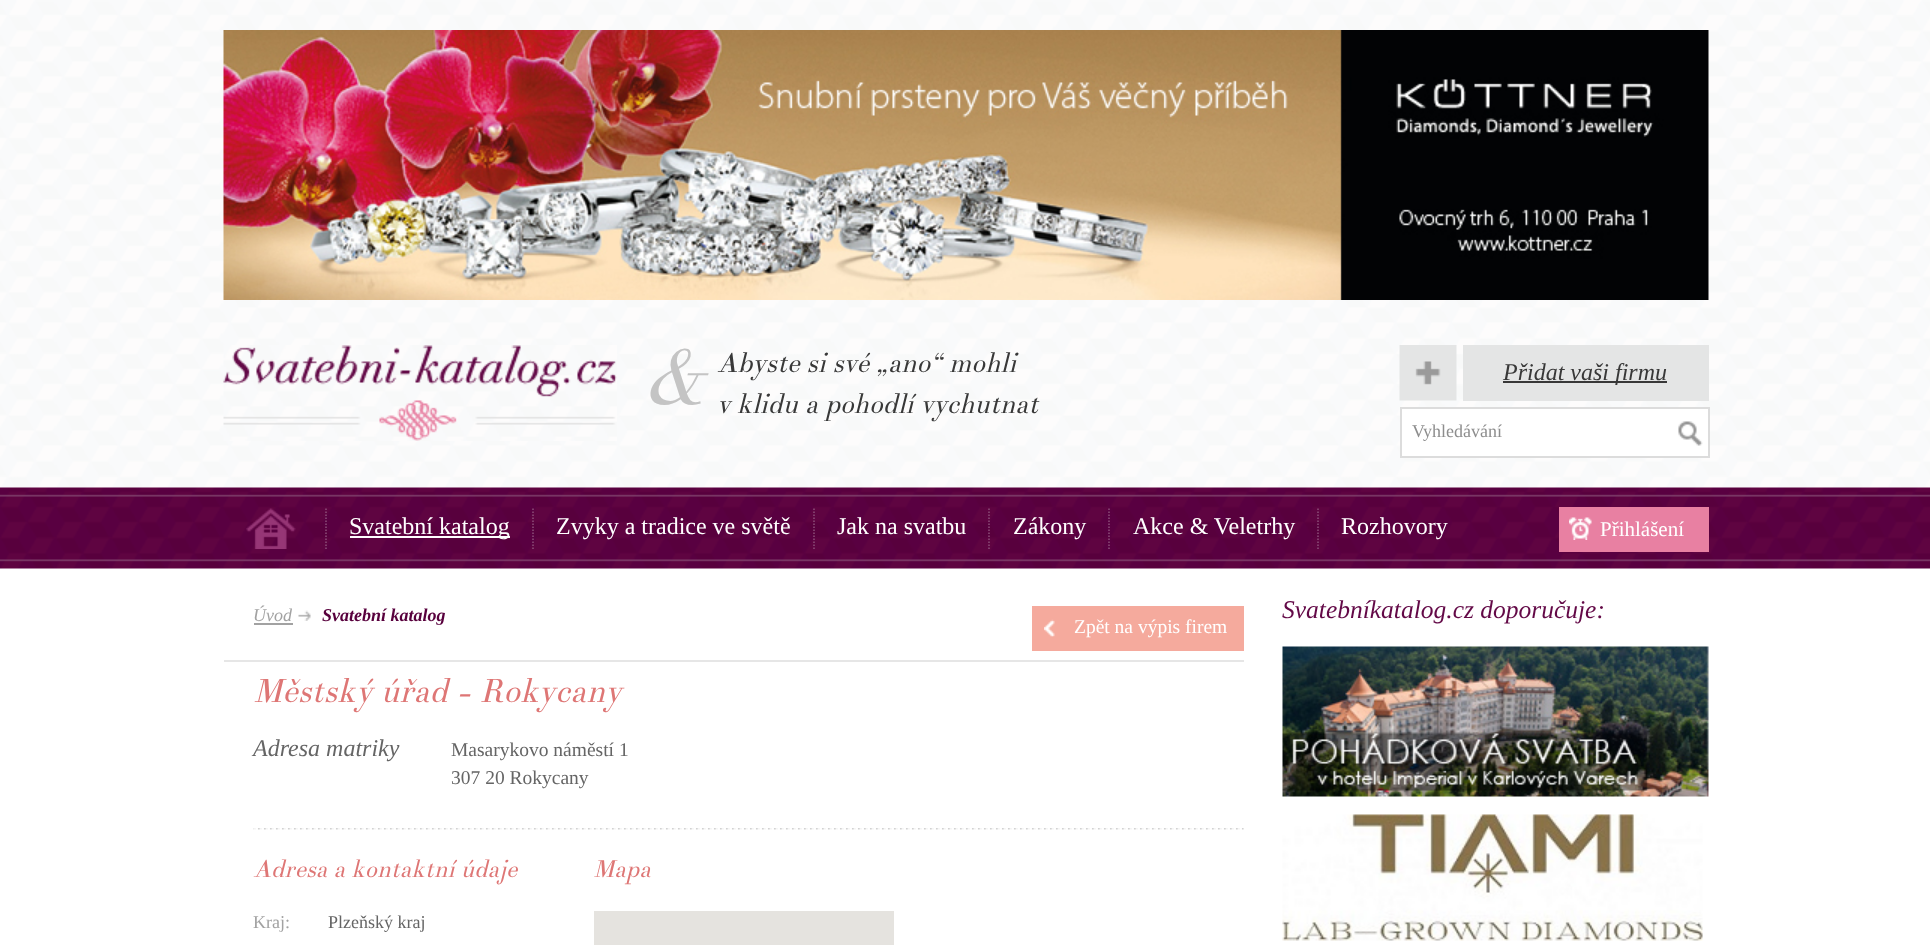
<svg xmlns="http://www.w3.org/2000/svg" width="1930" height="945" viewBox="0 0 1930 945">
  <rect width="100%" height="100%" fill="rgb(255,255,255)"/>
  <image x="0" y="0" width="1930" height="569" href="pic1.png"/>
  <image x="223" y="30" width="1486" height="270" href="pic2.png"/>
  <image x="223" y="345" width="394" height="96" href="pic3.png"/>
  <text x="643" y="404" font-family="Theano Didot" font-size="75" font-style="italic" fill="rgb(196,196,196)">&amp;</text>
  <g font-family="Theano Didot" font-size="27" font-style="italic" fill="rgb(56,56,56)">
    <text>
      <tspan x="717" y="372">Abyste si své „ano“ mohli</tspan>
      <tspan x="717" y="413">v klidu a pohodlí vychutnat</tspan>
    </text>
  </g>
  <image x="1399" y="345" width="58" height="56" href="pic4.png"/>
  <rect x="1463" y="345" width="246" height="56" fill="rgb(228,229,229)"/>
  <rect x="1503" y="381" width="164" height="2" fill="rgb(56,56,56)"/>
  <text x="1503" y="380" font-family="Liberation Serif" font-size="24" font-style="italic" fill="rgb(56,56,56)">Přidat vaši firmu</text>
  <rect x="1401" y="408" width="308" height="49" fill="rgb(255,255,255)" stroke="rgb(220,220,220)" stroke-width="2"/>
  <text x="1412" y="437" font-family="Liberation Serif" font-size="18" fill="rgb(141,141,141)">Vyhledávání</text>
  <image x="1678" y="421" width="25" height="25" href="pic5.png"/>
  <image x="246" y="508" width="50" height="41" href="pic6.png"/>
  <path d="M326 508.5V549" fill="none" stroke="rgb(140,79,121)" stroke-width="1.5" stroke-dasharray="1.5 1.5"/>
  <rect x="350" y="536" width="160" height="2" fill="rgb(255,255,255)"/>
  <text x="349" y="534" font-family="Liberation Serif" font-size="24" fill="rgb(255,255,255)">Svatební katalog</text>
  <path d="M533 508.5V549" fill="none" stroke="rgb(140,79,121)" stroke-width="1.5" stroke-dasharray="1.5 1.5"/>
  <text x="556" y="534" font-family="Liberation Serif" font-size="24" fill="rgb(255,255,255)">Zvyky a tradice ve světě</text>
  <path d="M814 508.5V549" fill="none" stroke="rgb(140,79,121)" stroke-width="1.5" stroke-dasharray="1.5 1.5"/>
  <text x="837" y="534" font-family="Liberation Serif" font-size="24" fill="rgb(255,255,255)">Jak na svatbu</text>
  <path d="M989 508.5V549" fill="none" stroke="rgb(140,79,121)" stroke-width="1.5" stroke-dasharray="1.5 1.5"/>
  <text x="1013" y="534" font-family="Liberation Serif" font-size="24" fill="rgb(255,255,255)">Zákony</text>
  <path d="M1109 508.5V549" fill="none" stroke="rgb(140,79,121)" stroke-width="1.5" stroke-dasharray="1.5 1.5"/>
  <text x="1133" y="534" font-family="Liberation Serif" font-size="24" fill="rgb(255,255,255)">Akce &amp; Veletrhy</text>
  <path d="M1318 508.5V549" fill="none" stroke="rgb(140,79,121)" stroke-width="1.5" stroke-dasharray="1.5 1.5"/>
  <text x="1341" y="534" font-family="Liberation Serif" font-size="24" fill="rgb(255,255,255)">Rozhovory</text>
  <rect x="1559" y="507" width="150" height="45" fill="rgb(232,128,162)"/>
  <image x="1569" y="517" width="23" height="23" href="pic7.png"/>
  <text x="1600" y="536" font-family="Liberation Serif" font-size="21" fill="rgb(255,255,255)">Přihlášení</text>
  <rect x="224" y="660" width="1020" height="2" fill="rgb(230,230,230)"/>
  <text x="253" y="621" font-family="Liberation Serif" font-size="18" font-style="italic" fill="rgb(162,162,162)">Úvod</text>
  <rect x="254" y="623" width="39" height="2" fill="rgb(162,162,162)"/>
  <image x="298" y="610" width="13" height="11" href="pic8.png"/>
  <text x="322" y="621" font-family="Liberation Serif" font-size="18" font-weight="bold" font-style="italic" fill="rgb(88,0,61)">Svatební katalog</text>
  <rect x="1032" y="606" width="212" height="45" fill="rgb(245,170,157)"/>
  <image x="1044" y="619" width="11" height="18" href="pic9.png"/>
  <text x="1074" y="633" font-family="Liberation Serif" font-size="19.5" fill="rgb(255,255,255)">Zpět na výpis firem</text>
  <text x="253" y="702" font-family="Theano Didot" font-size="33" font-style="italic" fill="rgb(222,118,117)">Městský úřad - Rokycany</text>
  <text x="253" y="756" font-family="Liberation Serif" font-size="24" font-style="italic" fill="rgb(101,101,101)">Adresa matriky</text>
  <g font-family="Liberation Serif" font-size="19.5" fill="rgb(101,101,101)">
    <text>
      <tspan x="451" y="756">Masarykovo náměstí 1</tspan>
      <tspan x="451" y="784">307 20 Rokycany</tspan>
    </text>
  </g>
  <image x="253" y="828" width="991" height="2" href="pic10.png"/>
  <path d="M253.5 829H1243.5" fill="none" stroke="rgb(255,255,255)" stroke-width="1.5" stroke-dasharray="1.5 1.5"/>
  <text x="253" y="877" font-family="Theano Didot" font-size="24" font-style="italic" fill="rgb(222,118,117)">Adresa a kontaktní údaje</text>
  <text x="253" y="928" font-family="Liberation Serif" font-size="18" fill="rgb(162,162,162)">Kraj:</text>
  <text x="328" y="928" font-family="Liberation Serif" font-size="18" fill="rgb(101,101,101)">Plzeňský kraj</text>
  <text x="593" y="877" font-family="Theano Didot" font-size="24" font-style="italic" fill="rgb(222,118,117)">Mapa</text>
  <rect x="594" y="911" width="300" height="34" fill="rgb(229,227,223)"/>
  <text x="1282" y="618" font-family="Liberation Serif" font-size="25.5" font-style="italic" fill="rgb(99,9,71)">Svatebníkatalog.cz doporučuje:</text>
  <image x="1282" y="646" width="427" height="151" href="pic11.png"/>
  <image x="1282" y="814" width="421" height="127" href="pic12.png"/>
</svg>
